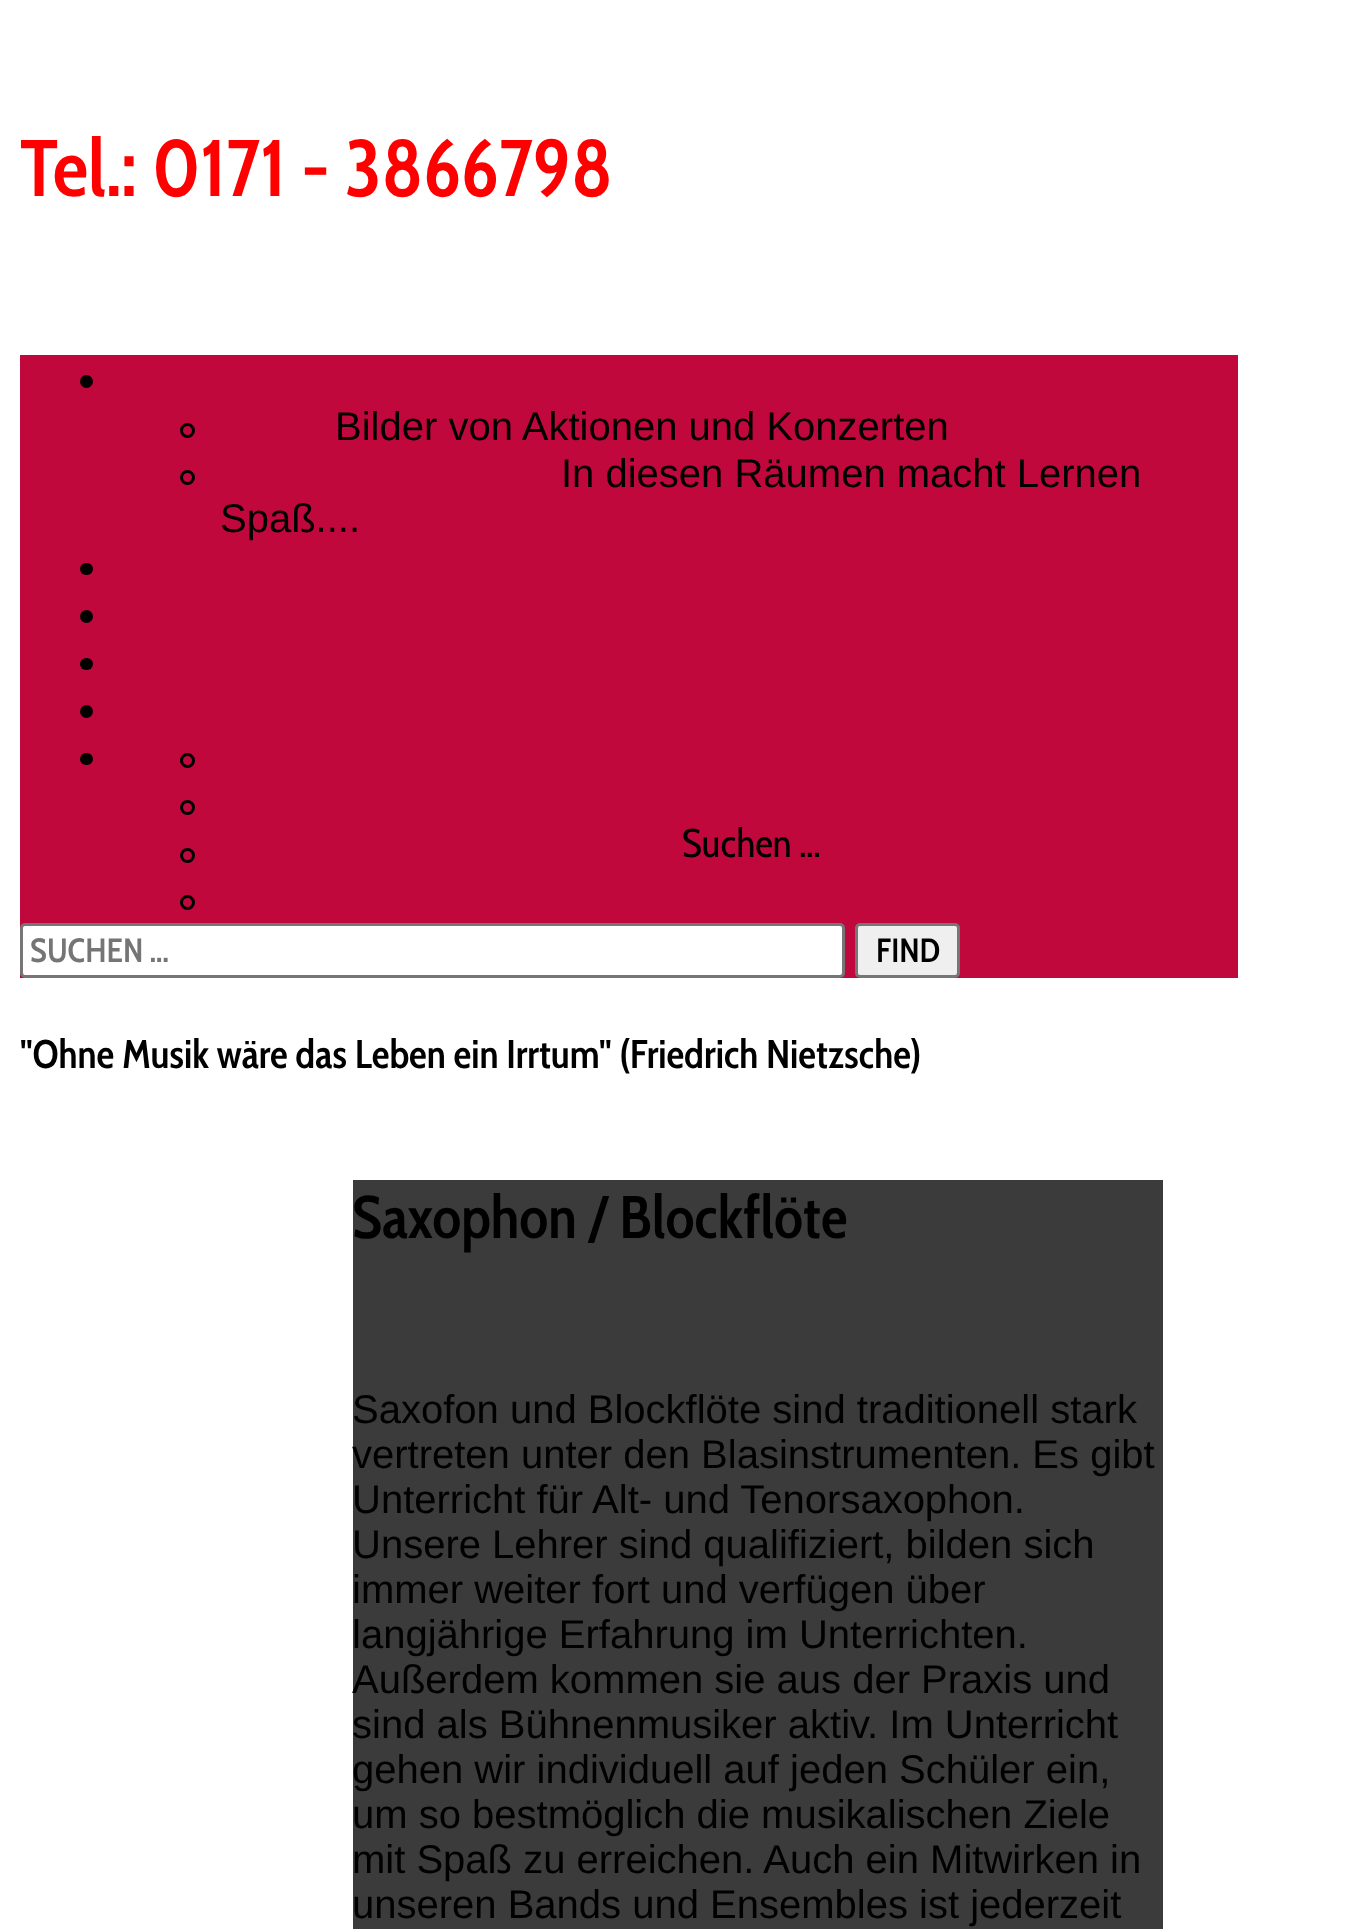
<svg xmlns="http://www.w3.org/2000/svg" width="1361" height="1929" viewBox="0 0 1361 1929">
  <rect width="100%" height="100%" fill="rgb(255,255,255)"/>
  <text x="20" y="196" font-family="Cabin Condensed" font-size="80" font-weight="600" fill="rgb(255,0,0)">Tel.: 0171 - 3866798</text>
  <rect x="20" y="355" width="1218" height="623" fill="rgb(193,8,60)"/>
  <circle cx="86.5" cy="381.5" r="6.5" fill="rgb(0,0,0)"/>
  <circle cx="187.5" cy="430.5" r="6" fill="none" stroke="rgb(0,0,0)" stroke-width="3"/>
  <text x="335" y="440" font-family="Liberation Sans" font-size="40" fill="rgb(0,0,0)">Bilder von Aktionen und Konzerten</text>
  <circle cx="187.5" cy="477.5" r="6" fill="none" stroke="rgb(0,0,0)" stroke-width="3"/>
  <g font-family="Liberation Sans" font-size="40" fill="rgb(0,0,0)">
    <text x="561" y="487">In diesen Räumen macht Lernen</text>
    <text x="220" y="532">Spaß....</text>
  </g>
  <rect x="80" y="563" width="13" height="12" rx="6" fill="rgb(0,0,0)"/>
  <circle cx="86.5" cy="616.5" r="6.5" fill="rgb(0,0,0)"/>
  <rect x="80" y="658" width="13" height="12" rx="6" fill="rgb(0,0,0)"/>
  <circle cx="86.5" cy="711.5" r="6.5" fill="rgb(0,0,0)"/>
  <rect x="80" y="753" width="13" height="12" rx="6" fill="rgb(0,0,0)"/>
  <circle cx="187.5" cy="760.5" r="6" fill="none" stroke="rgb(0,0,0)" stroke-width="3"/>
  <circle cx="187.5" cy="807.5" r="6" fill="none" stroke="rgb(0,0,0)" stroke-width="3"/>
  <circle cx="187.5" cy="855.5" r="6" fill="none" stroke="rgb(0,0,0)" stroke-width="3"/>
  <circle cx="187.5" cy="902.5" r="6" fill="none" stroke="rgb(0,0,0)" stroke-width="3"/>
  <text x="682" y="857" font-family="Cabin Condensed" font-size="40" fill="rgb(0,0,0)">Suchen ...</text>
  <rect x="21.5" y="924.5" width="822" height="52" rx="3.5" fill="rgb(255,255,255)" stroke="rgb(118,118,118)" stroke-width="3"/>
  <text x="30" y="962" font-family="Cabin Condensed" font-size="33.5" font-weight="600" fill="rgb(117,117,117)">SUCHEN ...</text>
  <rect x="856.5" y="924.5" width="102" height="52" rx="3.5" fill="rgb(239,239,239)" stroke="rgb(118,118,118)" stroke-width="3"/>
  <text x="876" y="962" font-family="Cabin Condensed" font-size="33.5" font-weight="600" fill="rgb(0,0,0)">FIND</text>
  <text x="20" y="1068" font-family="Cabin Condensed" font-size="40" font-weight="600" fill="rgb(0,0,0)">"Ohne Musik wäre das Leben ein Irrtum" (Friedrich Nietzsche)</text>
  <rect x="353" y="1180" width="810" height="749" fill="rgb(59,59,59)"/>
  <text x="352" y="1238" font-family="Cabin Condensed" font-size="60" font-weight="600" fill="rgb(0,0,0)">Saxophon / Blockflöte</text>
  <g font-family="Liberation Sans" font-size="40" fill="rgb(0,0,0)">
    <text>
      <tspan x="352" y="1423">Saxofon und Blockflöte sind traditionell stark</tspan>
      <tspan x="352" y="1468">vertreten unter den Blasinstrumenten. Es gibt</tspan>
      <tspan x="352" y="1513">Unterricht für Alt- und Tenorsaxophon.</tspan>
      <tspan x="352" y="1558">Unsere Lehrer sind qualifiziert, bilden sich</tspan>
      <tspan x="352" y="1603">immer weiter fort und verfügen über</tspan>
      <tspan x="352" y="1648">langjährige Erfahrung im Unterrichten.</tspan>
      <tspan x="352" y="1693">Außerdem kommen sie aus der Praxis und</tspan>
      <tspan x="352" y="1738">sind als Bühnenmusiker aktiv. Im Unterricht</tspan>
      <tspan x="352" y="1783">gehen wir individuell auf jeden Schüler ein,</tspan>
      <tspan x="352" y="1828">um so bestmöglich die musikalischen Ziele</tspan>
      <tspan x="352" y="1873">mit Spaß zu erreichen. Auch ein Mitwirken in</tspan>
      <tspan x="352" y="1918">unseren Bands und Ensembles ist jederzeit</tspan>
    </text>
  </g>
</svg>
